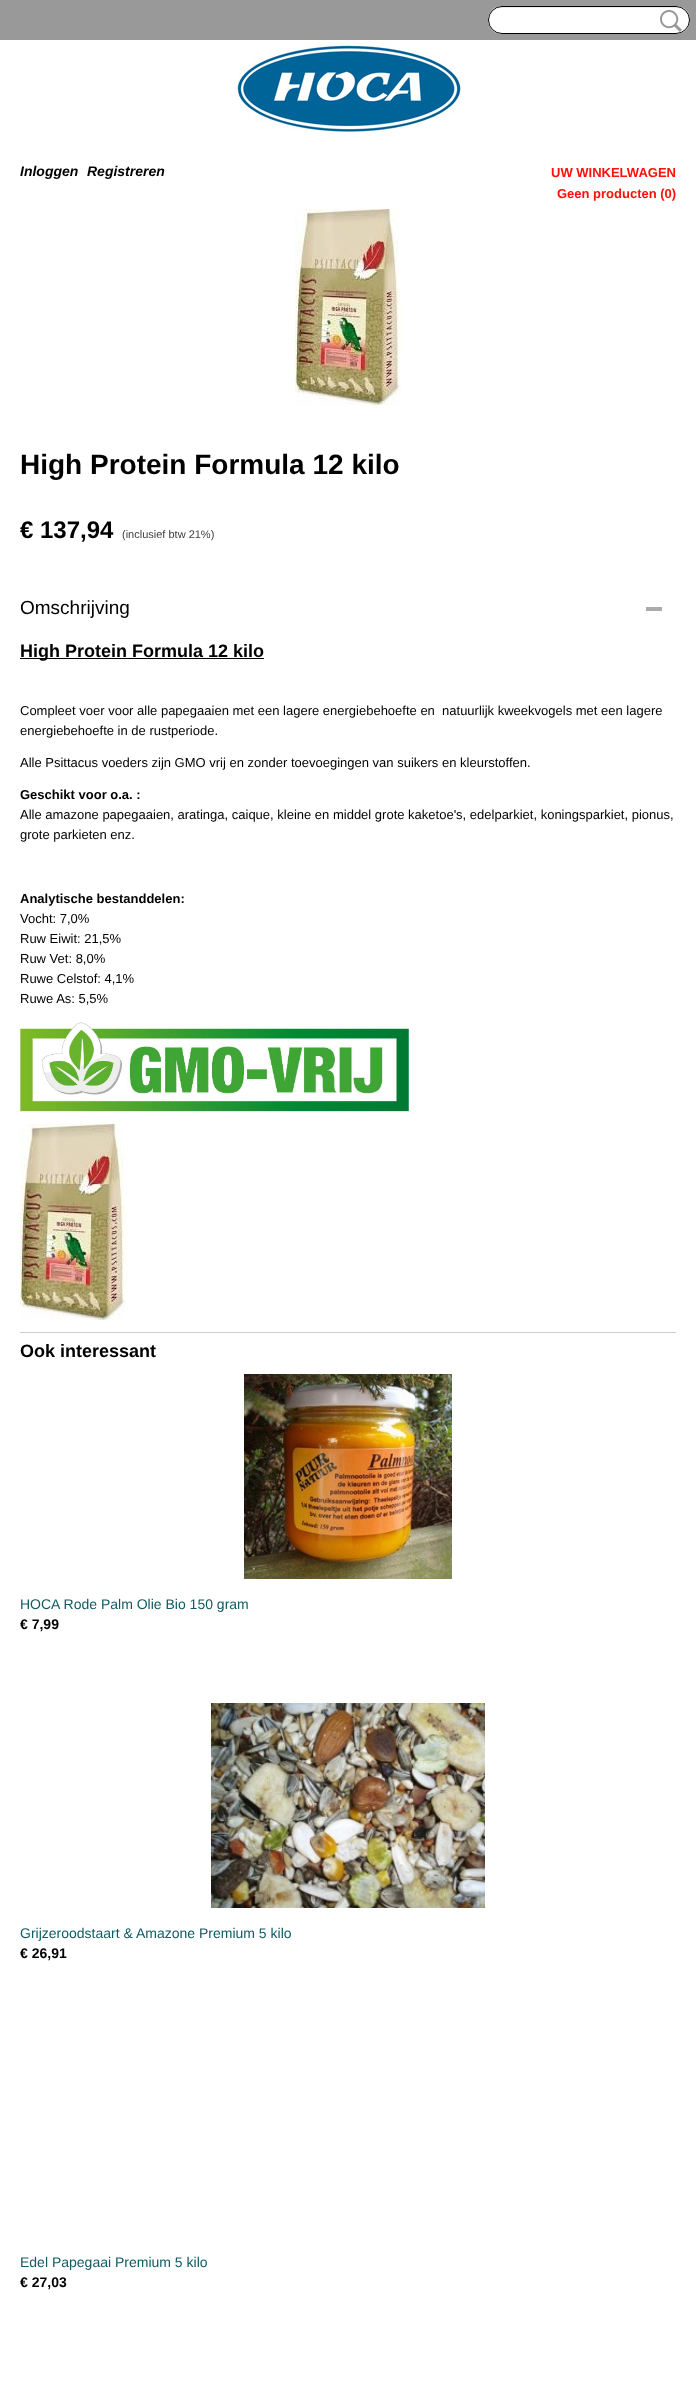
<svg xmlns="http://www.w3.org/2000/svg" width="696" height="2403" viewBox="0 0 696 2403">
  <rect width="100%" height="100%" fill="rgb(255,255,255)"/>
  <rect x="0" y="0" width="696" height="40" fill="rgb(153,153,153)"/>
  <rect x="488" y="6" width="202" height="28" rx="14" fill="rgb(255,255,255)"/>
  <path d="M502 8H676C683 8 689 14 689 21C690 0 655 7 647 7H531C523 7 488 0 489 21C489 14 495 8 502 8Z" fill="rgb(236,236,236)"/>
  <rect x="488.5" y="6.5" width="201" height="27" rx="13.5" fill="none" stroke="rgb(0,0,0)"/>
  <image x="660" y="10" width="22" height="22" href="pic1.png"/>
  <image x="236" y="42" width="226" height="96" href="pic2.png"/>
  <g font-family="Liberation Sans" font-size="14" font-weight="bold" font-style="italic" fill="rgb(0,0,0)">
    <text x="20" y="176">Inloggen</text>
    <text x="87" y="176">Registreren</text>
  </g>
  <g font-family="Liberation Sans" font-size="13" font-weight="bold" fill="rgb(255,16,8)">
    <text x="551" y="177">UW WINKELWAGEN</text>
    <text x="557" y="198">Geen producten (0)</text>
  </g>
  <image x="295" y="209" width="106" height="196" href="pic3.png"/>
  <text x="20" y="474" font-family="Liberation Sans" font-size="28" font-weight="bold" fill="rgb(0,0,0)">High Protein Formula 12 kilo</text>
  <text x="20" y="538" font-family="Liberation Sans" font-size="24" font-weight="bold" fill="rgb(0,0,0)">€ 137,94</text>
  <text x="122" y="538" font-family="Liberation Sans" font-size="11" fill="rgb(64,64,64)">(inclusief btw 21%)</text>
  <rect x="20" y="1332" width="656" height="1" fill="rgb(204,204,204)"/>
  <rect x="646" y="607" width="16" height="4" fill="rgb(171,171,171)"/>
  <text x="20" y="614" font-family="Liberation Sans" font-size="19" fill="rgb(0,0,0)">Omschrijving</text>
  <rect x="20" y="658" width="244" height="1" fill="rgb(0,0,0)"/>
  <text x="20" y="657" font-family="Liberation Sans" font-size="18" font-weight="bold" fill="rgb(0,0,0)">High Protein Formula 12 kilo</text>
  <g font-family="Liberation Sans" font-size="13" fill="rgb(0,0,0)">
    <text xml:space="preserve"><tspan x="20" y="715">Compleet voer voor alle papegaaien met een lagere energiebehoefte en  natuurlijk kweekvogels met een lagere</tspan><tspan x="20" y="735">energiebehoefte in de rustperiode.</tspan></text>
    <text x="20" y="767">Alle Psittacus voeders zijn GMO vrij en zonder toevoegingen van suikers en kleurstoffen.</text>
  </g>
  <text x="20" y="799" font-family="Liberation Sans" font-size="13" font-weight="bold" fill="rgb(0,0,0)">Geschikt voor o.a. :</text>
  <g font-family="Liberation Sans" font-size="13" fill="rgb(0,0,0)">
    <text>
      <tspan x="20" y="819">Alle amazone papegaaien, aratinga, caique, kleine en middel grote kaketoe's, edelparkiet, koningsparkiet, pionus,</tspan>
      <tspan x="20" y="839">grote parkieten enz.</tspan>
    </text>
  </g>
  <text x="20" y="903" font-family="Liberation Sans" font-size="13" font-weight="bold" fill="rgb(0,0,0)">Analytische bestanddelen:</text>
  <g font-family="Liberation Sans" font-size="13" fill="rgb(0,0,0)">
    <text>
      <tspan x="20" y="923">Vocht: 7,0%</tspan>
      <tspan x="20" y="943">Ruw Eiwit: 21,5%</tspan>
      <tspan x="20" y="963">Ruw Vet: 8,0%</tspan>
      <tspan x="20" y="983">Ruwe Celstof: 4,1%</tspan>
      <tspan x="20" y="1003">Ruwe As: 5,5%</tspan>
    </text>
  </g>
  <image x="20" y="1022" width="389" height="90" href="pic4.png"/>
  <image x="20" y="1124" width="106" height="196" href="pic5.png"/>
  <text x="20" y="1357" font-family="Liberation Sans" font-size="18" font-weight="bold" fill="rgb(0,0,0)">Ook interessant</text>
  <image x="244" y="1374" width="208" height="205" href="pic6.png"/>
  <text x="20" y="1609" font-family="Liberation Sans" font-size="14" fill="rgb(16,91,99)">HOCA Rode Palm Olie Bio 150 gram</text>
  <text x="20" y="1629" font-family="Liberation Sans" font-size="14" font-weight="bold" fill="rgb(0,0,0)">€ 7,99</text>
  <image x="211" y="1703" width="274" height="205" href="pic7.png"/>
  <text x="20" y="1938" font-family="Liberation Sans" font-size="14" fill="rgb(16,91,99)">Grijzeroodstaart &amp; Amazone Premium 5 kilo</text>
  <text x="20" y="1958" font-family="Liberation Sans" font-size="14" font-weight="bold" fill="rgb(0,0,0)">€ 26,91</text>
  <text x="20" y="2267" font-family="Liberation Sans" font-size="14" fill="rgb(16,91,99)">Edel Papegaai Premium 5 kilo</text>
  <text x="20" y="2287" font-family="Liberation Sans" font-size="14" font-weight="bold" fill="rgb(0,0,0)">€ 27,03</text>
</svg>
